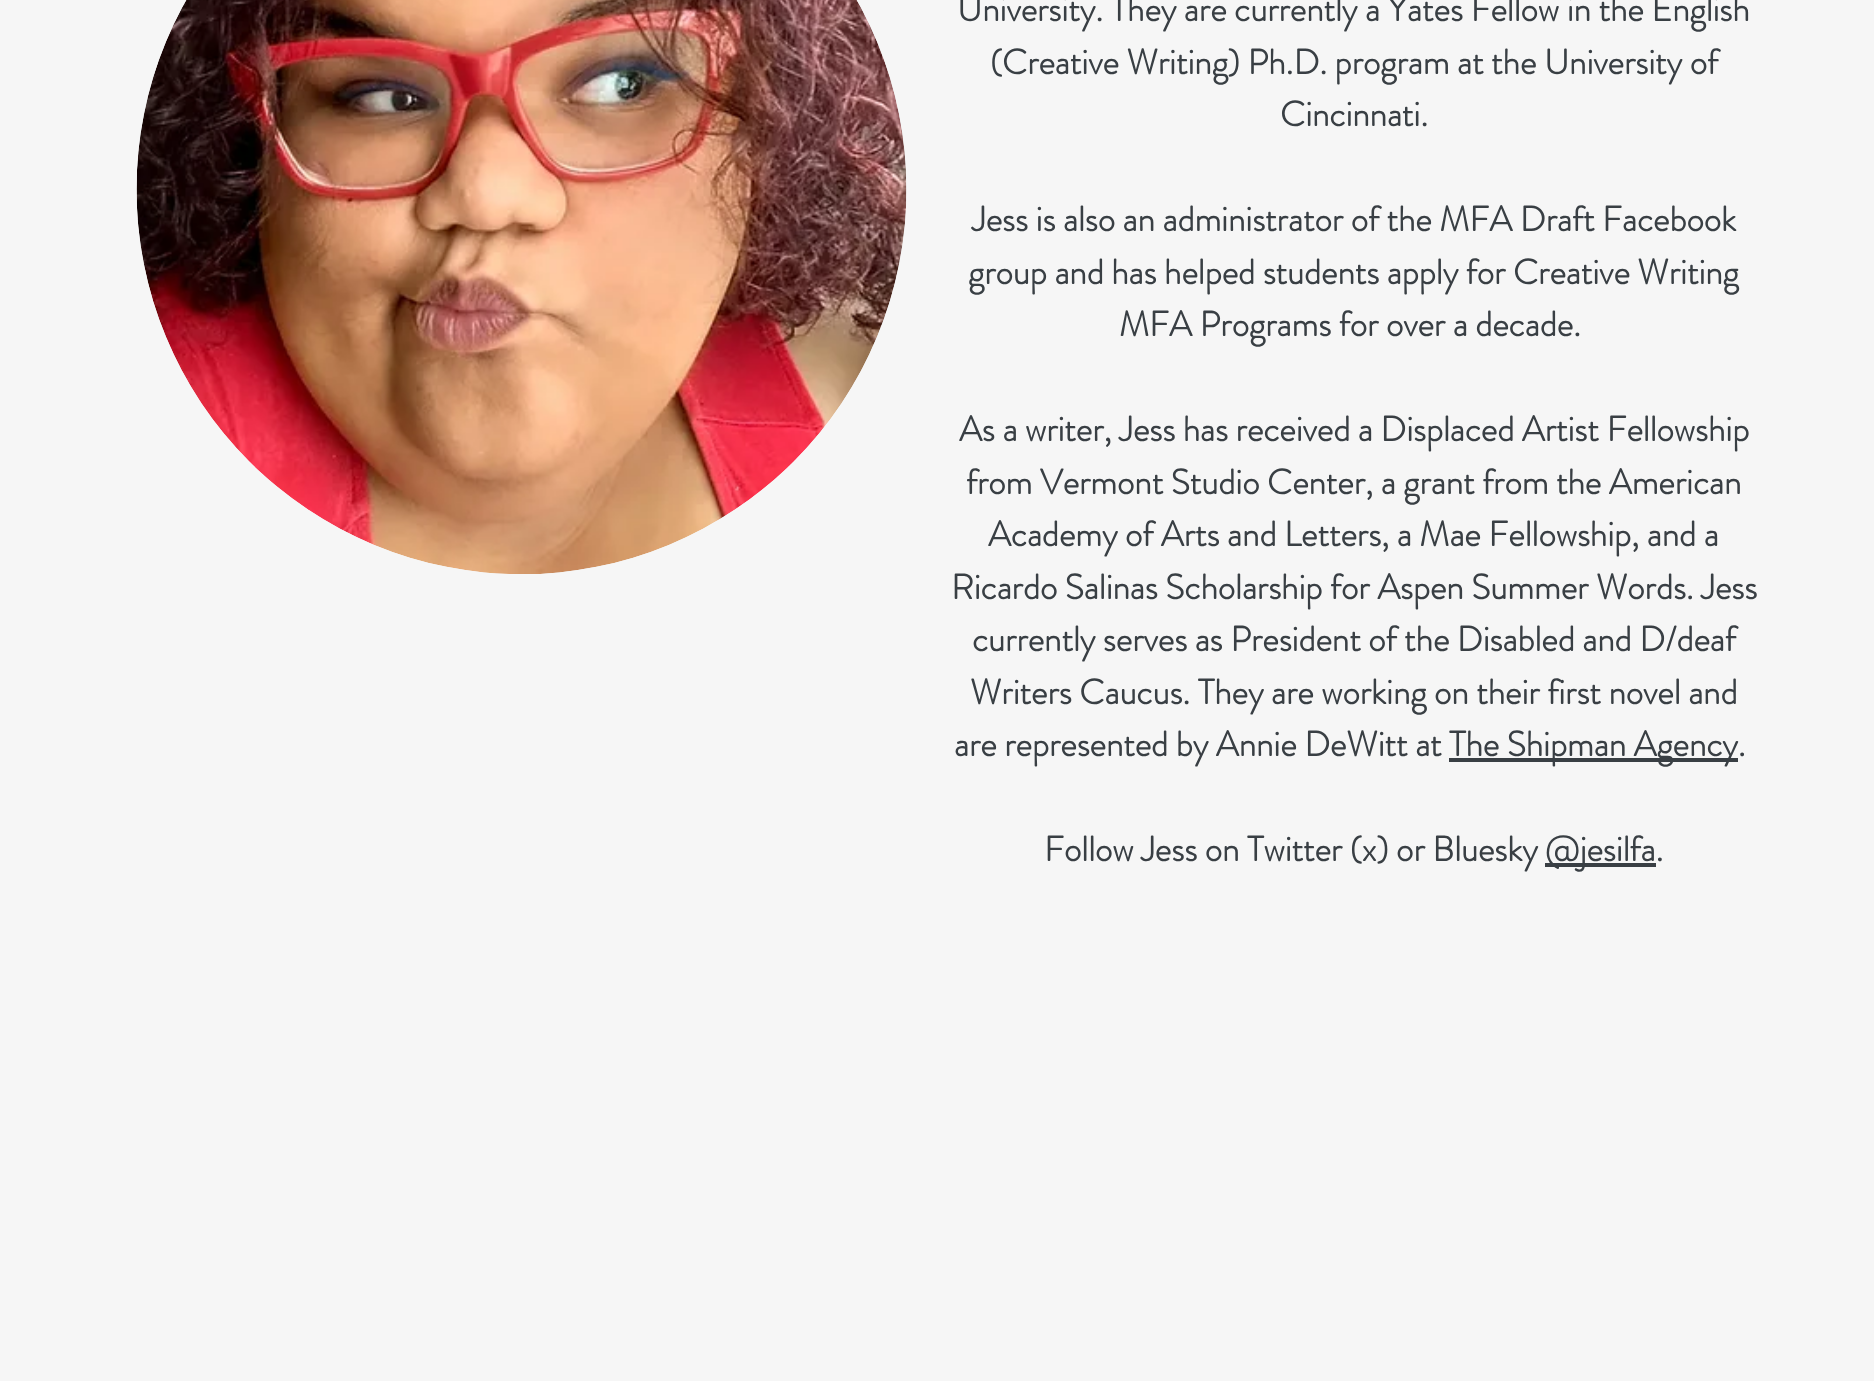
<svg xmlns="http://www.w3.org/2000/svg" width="1874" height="1381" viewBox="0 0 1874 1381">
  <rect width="100%" height="100%" fill="rgb(246,246,246)"/>
  <image x="136" y="0" width="771" height="574" href="pic1.png"/>
  <g font-family="'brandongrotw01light'" font-size="35" font-weight="bold" fill="rgb(57,63,68)">
    <text x="957" y="21">University. They are currently a Yates Fellow in the English</text>
    <text x="990" y="74">(Creative Writing) Ph.D. program at the University of</text>
    <text x="1280" y="126">Cincinnati.</text>
    <text x="972" y="231">Jess is also an administrator of the MFA Draft Facebook</text>
    <text x="968" y="284">group and has helped students apply for Creative Writing</text>
    <text x="1119" y="336">MFA Programs for over a decade.</text>
    <text x="959" y="441">As a writer, Jess has received a Displaced Artist Fellowship</text>
    <text x="966" y="494">from Vermont Studio Center, a grant from the American</text>
    <text x="988" y="546">Academy of Arts and Letters, a Mae Fellowship, and a</text>
    <text x="951" y="599">Ricardo Salinas Scholarship for Aspen Summer Words. Jess</text>
    <text x="972" y="651">currently serves as President of the Disabled and D/deaf</text>
    <text x="970" y="704">Writers Caucus. They are working on their first novel and</text>
    <text x="954" y="756">are represented by Annie DeWitt at</text>
  </g>
  <rect x="1449" y="758" width="289" height="4" fill="rgb(57,63,68)"/>
  <g font-family="'brandongrotw01light'" font-size="35" font-weight="bold" fill="rgb(57,63,68)">
    <text x="1449" y="756">The Shipman Agency.</text>
    <text x="1044" y="861">Follow Jess on Twitter (x) or Bluesky</text>
  </g>
  <rect x="1545" y="863" width="111" height="4" fill="rgb(57,63,68)"/>
  <text x="1545" y="861" font-family="'brandongrotw01light'" font-size="35" font-weight="bold" fill="rgb(57,63,68)">@jesilfa.</text>
</svg>
